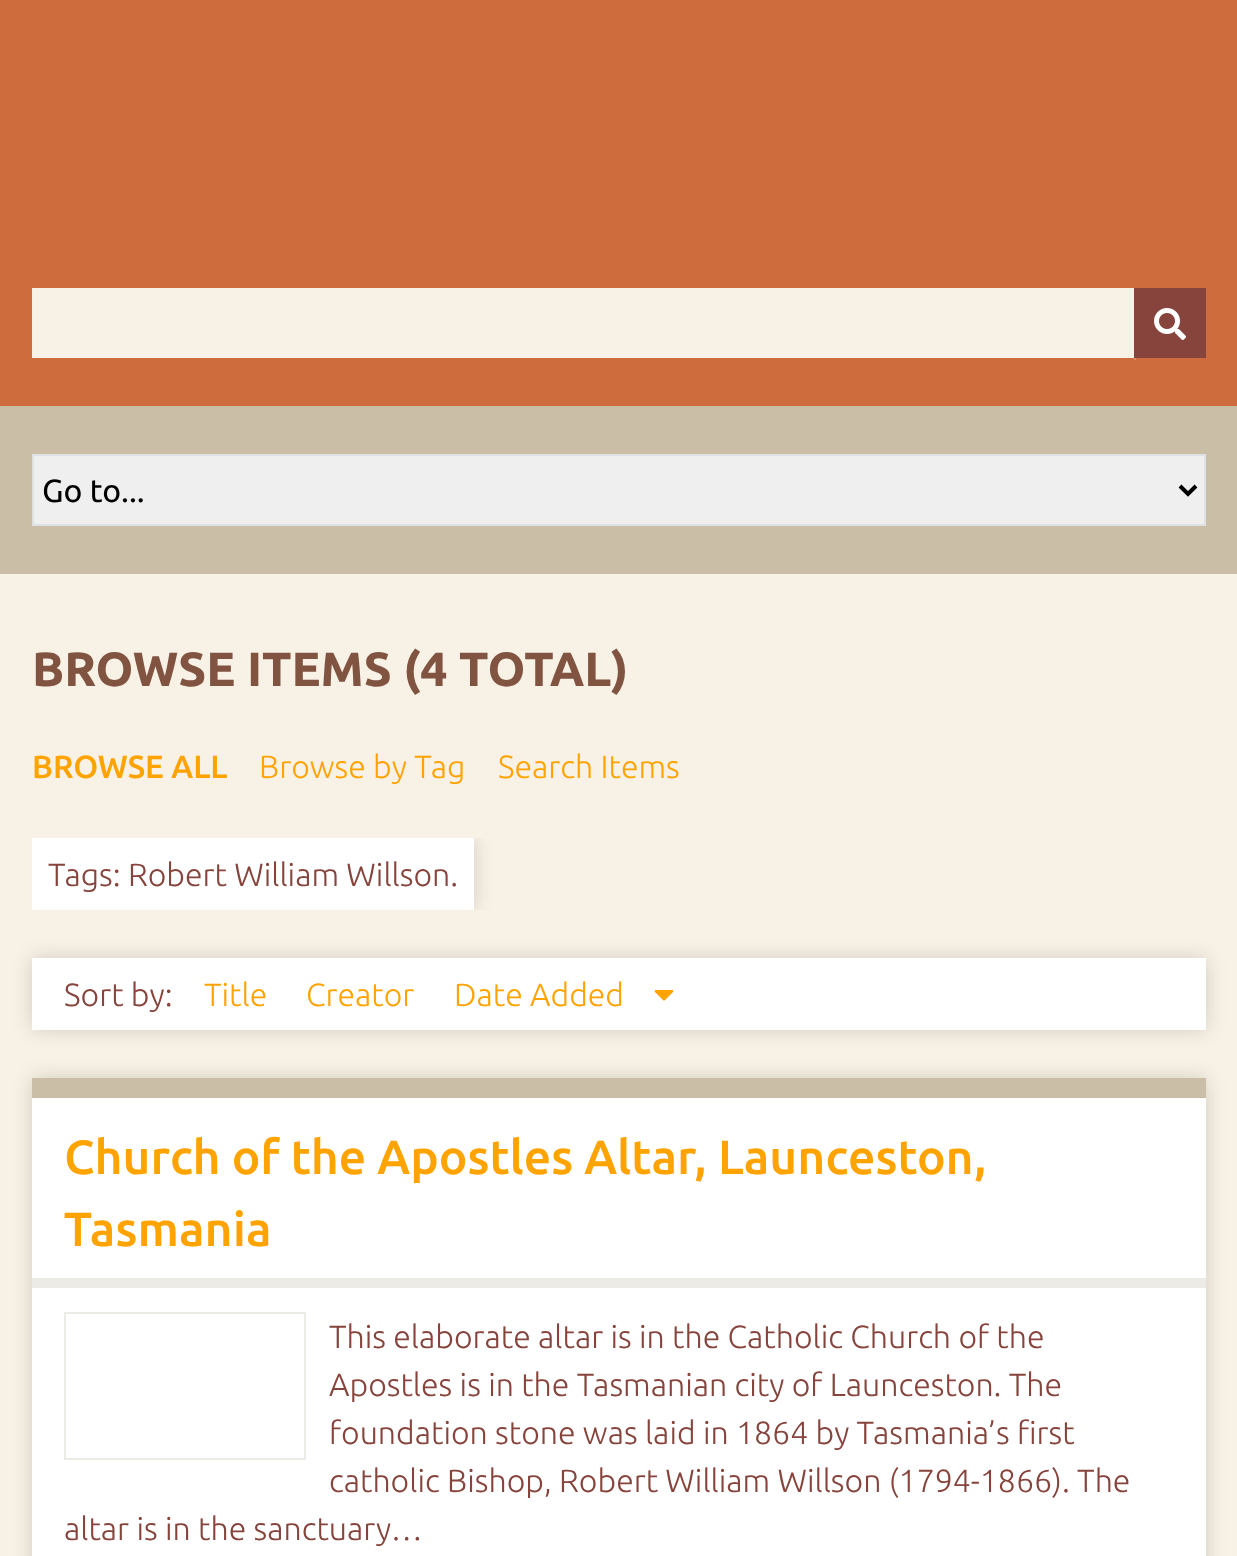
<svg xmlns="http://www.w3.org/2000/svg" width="1237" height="1556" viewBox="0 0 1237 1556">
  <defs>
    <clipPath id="clip1"><rect x="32" y="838" width="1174" height="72"/></clipPath>
  </defs>
  <rect width="100%" height="100%" fill="rgb(206,108,62)"/>
  <rect x="1134" y="358" width="2" height="2" fill="rgb(216,137,101)"/>
  <rect x="32" y="288" width="1102" height="70" fill="rgb(248,241,229)"/>
  <rect x="1134" y="288" width="72" height="70" fill="rgb(134,68,60)"/>
  <image x="1154" y="308" width="32" height="32" href="pic1.png"/>
  <rect x="0" y="406" width="1237" height="168" fill="rgb(202,191,166)"/>
  <rect x="33" y="455" width="1172" height="70" fill="rgb(239,239,239)" stroke="rgb(223,226,226)" stroke-width="2"/>
  <path d="M1180 486L1188 494L1196 486" fill="none" stroke="rgb(0,0,0)" stroke-width="4"/>
  <text x="42" y="502" font-family="Ubuntu" font-size="32" fill="rgb(0,0,0)">Go to...</text>
  <rect x="0" y="574" width="1237" height="982" fill="rgb(248,241,229)"/>
  <text x="32" y="686" font-family="Ubuntu" font-size="48" font-weight="bold" fill="rgb(129,84,66)">BROWSE ITEMS (4 TOTAL)</text>
  <text x="32" y="778" font-family="Ubuntu" font-size="32" font-weight="500" fill="rgb(255,163,0)">BROWSE ALL</text>
  <g font-family="Ubuntu" font-size="32" font-weight="300" fill="rgb(255,163,0)">
    <text x="259" y="778">Browse by Tag</text>
    <text x="498" y="778">Search Items</text>
  </g>
  <g clip-path="url(#clip1)">
    <rect x="32" y="838" width="442" height="72" fill="rgba(0,0,0,0.15)" filter="blur(10px)"/>
  </g>
  <rect x="32" y="838" width="442" height="72" fill="rgb(255,255,255)"/>
  <text x="48" y="886" font-family="Ubuntu" font-size="32" font-weight="300" fill="rgb(134,68,60)">Tags: Robert William Willson.</text>
  <rect x="32" y="958" width="1174" height="72" fill="rgba(0,0,0,0.15)" filter="blur(10px)"/>
  <rect x="32" y="958" width="1174" height="72" fill="rgb(255,255,255)"/>
  <text x="64" y="1006" font-family="Ubuntu" font-size="32" font-weight="300" fill="rgb(134,68,60)">Sort by:</text>
  <g font-family="Ubuntu" font-size="32" font-weight="300" fill="rgb(255,163,0)">
    <text x="204" y="1006">Title</text>
    <text x="306" y="1006">Creator</text>
    <text x="454" y="1006">Date Added</text>
  </g>
  <image x="654" y="990" width="20" height="11" href="pic2.png"/>
  <rect x="32" y="1078" width="1174" height="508" fill="rgba(0,0,0,0.15)" filter="blur(10px)"/>
  <rect x="32" y="1098" width="1174" height="458" fill="rgb(255,255,255)"/>
  <rect x="32" y="1078" width="1174" height="20" fill="rgb(202,191,166)"/>
  <rect x="32" y="1278" width="1174" height="10" fill="rgb(236,235,230)"/>
  <g font-family="Ubuntu" font-size="48" font-weight="500" fill="rgb(255,163,0)">
    <text>
      <tspan x="64" y="1174">Church of the Apostles Altar, Launceston,</tspan>
      <tspan x="64" y="1246">Tasmania</tspan>
    </text>
  </g>
  <rect x="65" y="1313" width="240" height="146" fill="none" stroke="rgb(236,235,230)" stroke-width="2"/>
  <g font-family="Ubuntu" font-size="32" font-weight="300" fill="rgb(134,68,60)">
    <text>
      <tspan x="329" y="1348">This elaborate altar is in the Catholic Church of the</tspan>
      <tspan x="329" y="1396">Apostles is in the Tasmanian city of Launceston. The</tspan>
      <tspan x="329" y="1444">foundation stone was laid in 1864 by Tasmania’s first</tspan>
      <tspan x="329" y="1492">catholic Bishop, Robert William Willson (1794-1866). The</tspan>
    </text>
    <text x="64" y="1540">altar is in the sanctuary…</text>
  </g>
</svg>
